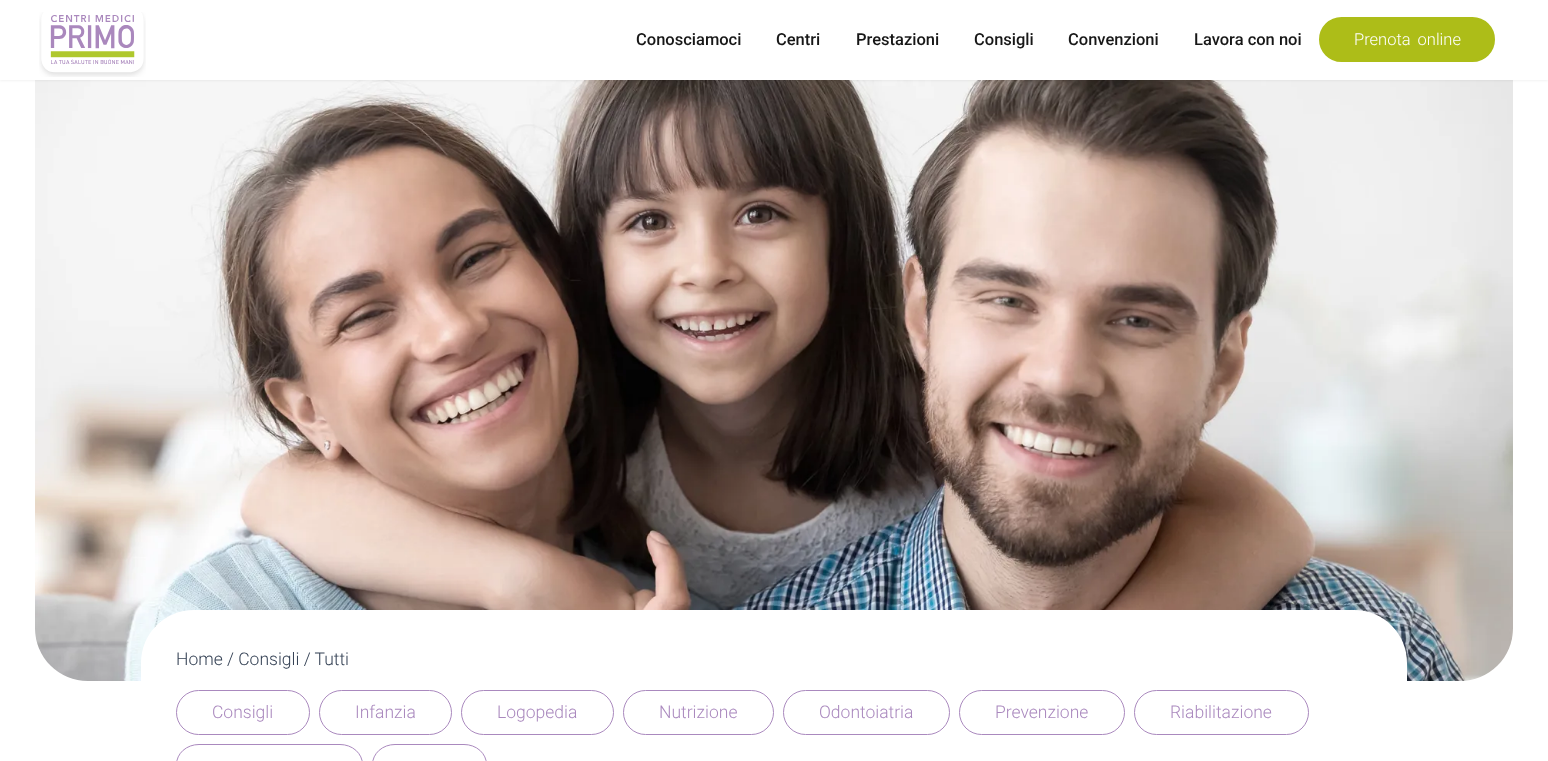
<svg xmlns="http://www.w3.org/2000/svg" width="1548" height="761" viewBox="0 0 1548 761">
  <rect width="100%" height="100%" fill="rgb(255,255,255)"/>
  <image x="35" y="80" width="1478" height="601" href="pic2.png"/>
  <rect x="0" y="1" width="1548" height="80" fill="rgba(0,0,0,0.05)" filter="blur(1px)"/>
  <rect x="0" y="0" width="1548" height="80" fill="rgb(255,255,255)"/>
  <image x="39" y="12" width="107" height="65" href="pic1.png"/>
  <g font-family="Roboto" font-size="16.5" font-weight="500" fill="rgb(23,23,23)">
    <text x="636" y="45">Conosciamoci</text>
    <text x="776" y="45">Centri</text>
    <text x="856" y="45">Prestazioni</text>
    <text x="974" y="45">Consigli</text>
    <text x="1068" y="45">Convenzioni</text>
    <text x="1194" y="45">Lavora con noi</text>
  </g>
  <rect x="1320" y="18" width="174" height="43" rx="21.5" fill="rgb(173,189,24)" stroke="rgb(173,189,24)" stroke-width="2"/>
  <text x="1354" y="45" word-spacing="3" font-family="Roboto" font-size="16.5" font-weight="300" fill="rgb(255,255,255)">Prenota online</text>
  <path d="M194 610H1354C1383.5 610 1407 633.5 1407 663V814H141V663C141 633.5 164.5 610 194 610Z" fill="rgb(255,255,255)"/>
  <text x="176" y="665" font-family="Roboto" font-size="17.5" font-weight="300" fill="rgb(52,65,84)">Home / Consigli / Tutti</text>
  <rect x="176.5" y="690.5" width="133" height="44" rx="22" fill="none" stroke="rgb(170,137,190)"/>
  <text x="212" y="718" font-family="Roboto" font-size="17.5" font-weight="300" fill="rgb(170,137,190)">Consigli</text>
  <rect x="319.5" y="690.5" width="132" height="44" rx="22" fill="none" stroke="rgb(170,137,190)"/>
  <text x="355" y="718" font-family="Roboto" font-size="17.5" font-weight="300" fill="rgb(170,137,190)">Infanzia</text>
  <rect x="461.5" y="690.5" width="152" height="44" rx="22" fill="none" stroke="rgb(170,137,190)"/>
  <text x="497" y="718" font-family="Roboto" font-size="17.5" font-weight="300" fill="rgb(170,137,190)">Logopedia</text>
  <rect x="623.5" y="690.5" width="150" height="44" rx="22" fill="none" stroke="rgb(170,137,190)"/>
  <text x="659" y="718" font-family="Roboto" font-size="17.5" font-weight="300" fill="rgb(170,137,190)">Nutrizione</text>
  <rect x="783.5" y="690.5" width="166" height="44" rx="22" fill="none" stroke="rgb(170,137,190)"/>
  <text x="819" y="718" font-family="Roboto" font-size="17.5" font-weight="300" fill="rgb(170,137,190)">Odontoiatria</text>
  <rect x="959.5" y="690.5" width="165" height="44" rx="22" fill="none" stroke="rgb(170,137,190)"/>
  <text x="995" y="718" font-family="Roboto" font-size="17.5" font-weight="300" fill="rgb(170,137,190)">Prevenzione</text>
  <rect x="1134.5" y="690.5" width="174" height="44" rx="22" fill="none" stroke="rgb(170,137,190)"/>
  <text x="1170" y="718" font-family="Roboto" font-size="17.5" font-weight="300" fill="rgb(170,137,190)">Riabilitazione</text>
  <rect x="176.5" y="744.5" width="186" height="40" rx="22.5" fill="none" stroke="rgb(170,137,190)"/>
  <rect x="372.5" y="744.5" width="114" height="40" rx="22.5" fill="none" stroke="rgb(170,137,190)"/>
</svg>
